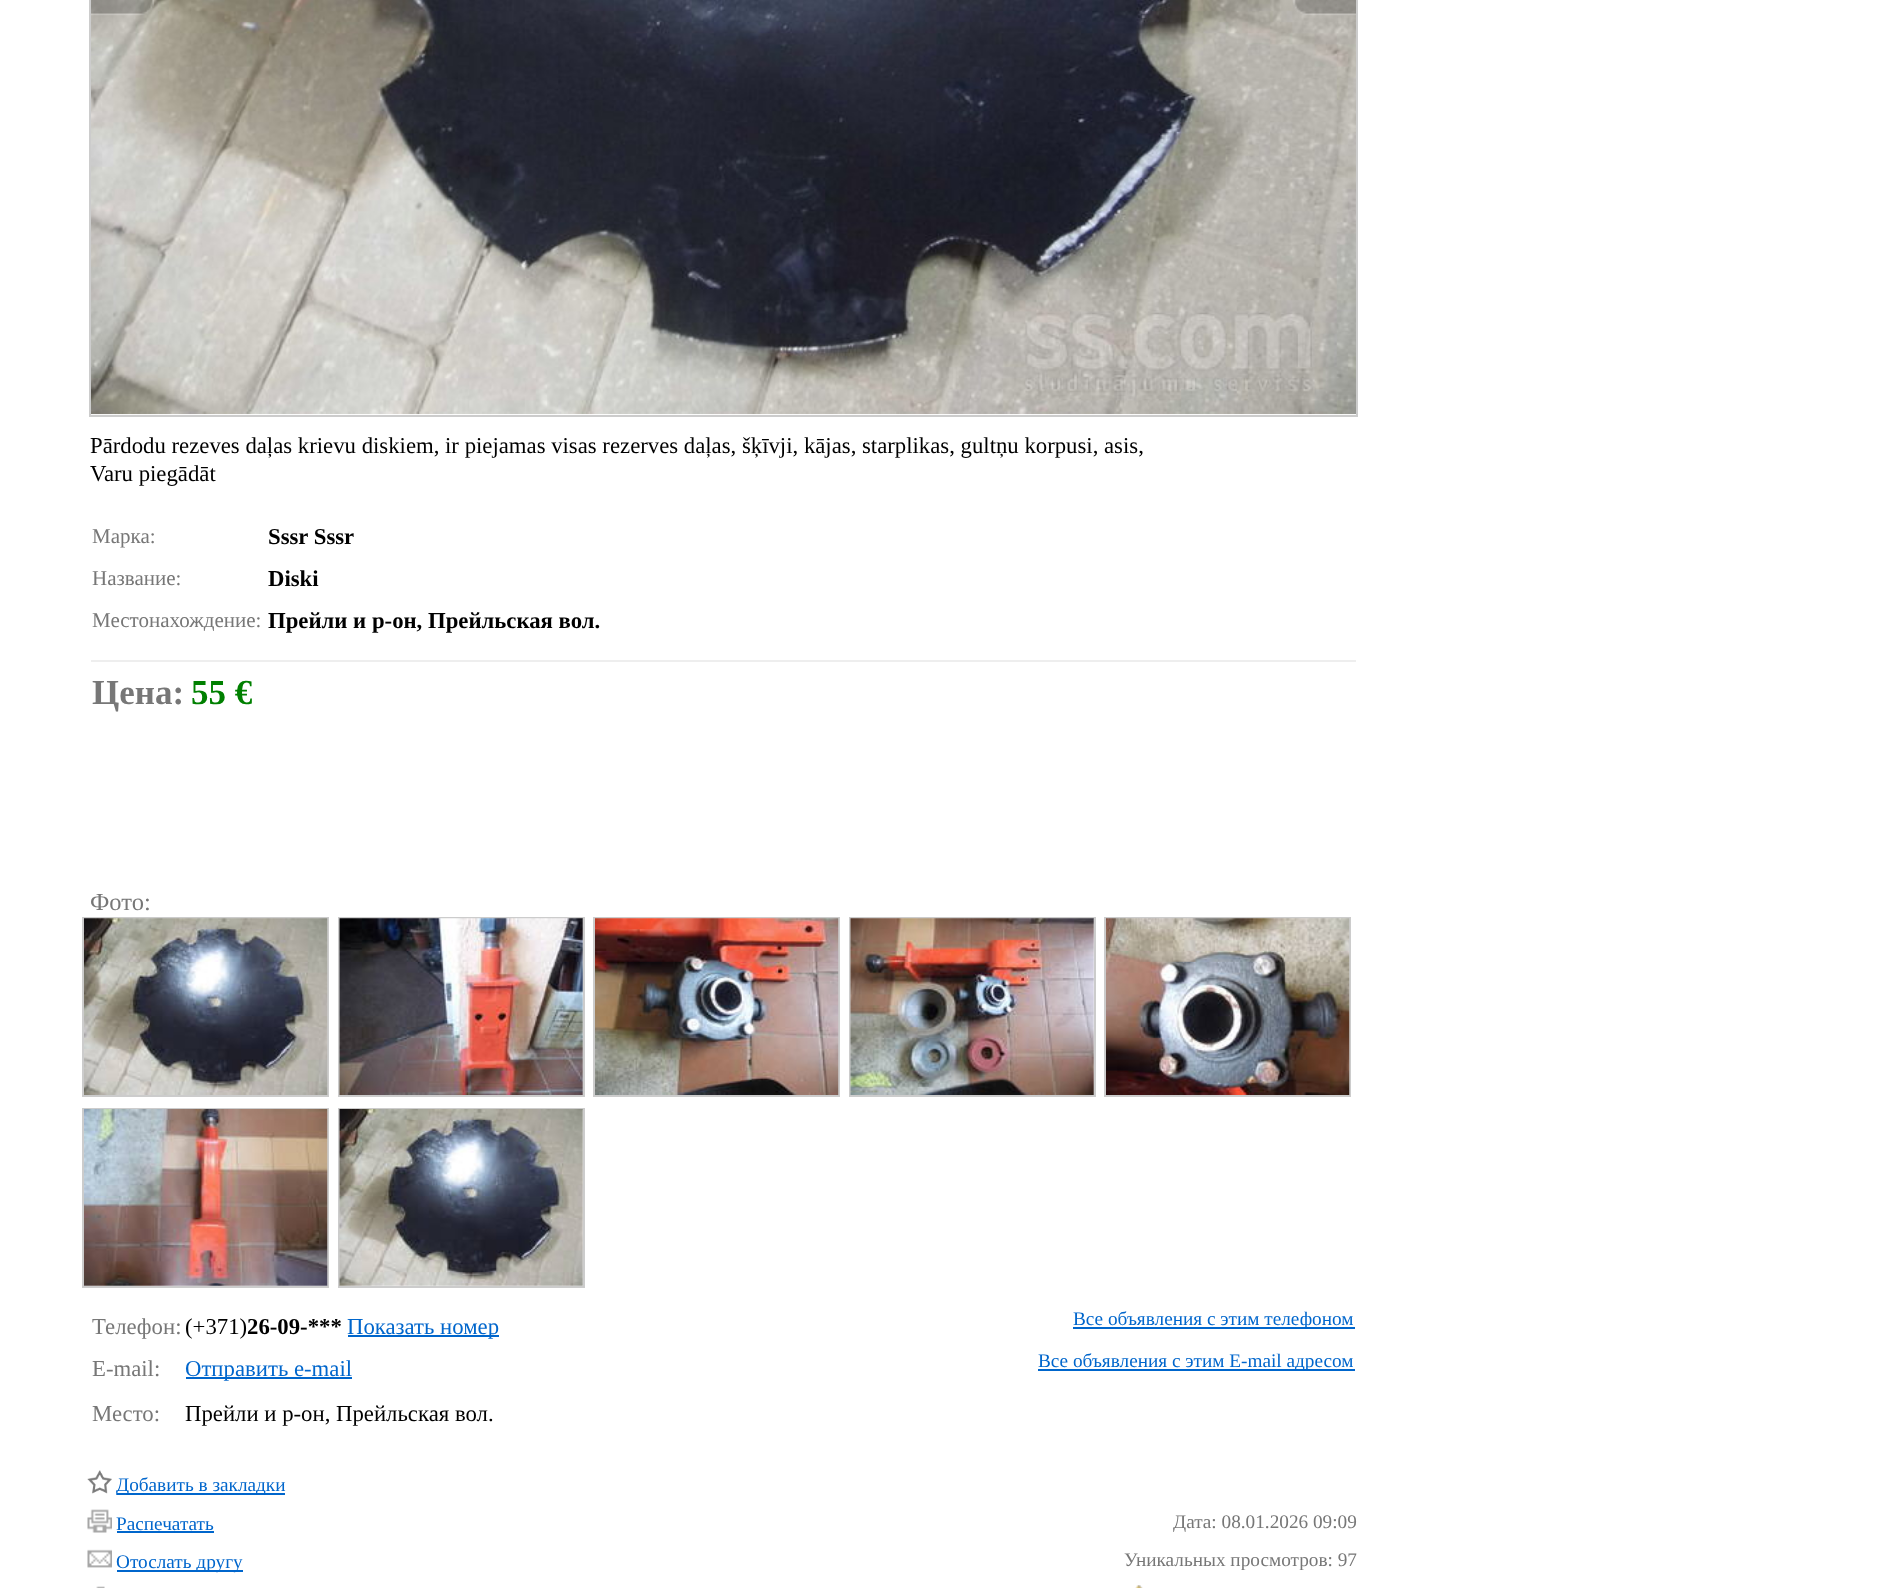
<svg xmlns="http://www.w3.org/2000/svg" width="1902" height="1588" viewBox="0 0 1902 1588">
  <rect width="100%" height="100%" fill="rgb(255,255,255)"/>
  <rect x="90" y="-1" width="1267" height="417" fill="none" stroke="rgb(204,204,204)" stroke-width="2"/>
  <image x="91" y="0" width="1265" height="415" href="pic1.png"/>
  <image x="91" y="0" width="63" height="16" href="pic2.png"/>
  <image x="1293" y="0" width="63" height="16" href="pic3.png"/>
  <g font-family="Liberation Serif" font-size="22.75" fill="rgb(0,0,0)">
    <text>
      <tspan x="90" y="453">Pārdodu rezeves daļas krievu diskiem, ir piejamas visas rezerves daļas, šķīvji, kājas, starplikas, gultņu korpusi, asis,</tspan>
      <tspan x="90" y="481">Varu piegādāt</tspan>
    </text>
  </g>
  <text x="92" y="543" font-family="Liberation Serif" font-size="21" fill="rgb(119,119,119)">Марка:</text>
  <text x="268" y="544" font-family="Liberation Serif" font-size="22.75" font-weight="bold" fill="rgb(0,0,0)">Sssr Sssr</text>
  <text x="92" y="585" font-family="Liberation Serif" font-size="21" fill="rgb(119,119,119)">Название:</text>
  <text x="268" y="586" font-family="Liberation Serif" font-size="22.75" font-weight="bold" fill="rgb(0,0,0)">Diski</text>
  <text x="92" y="627" font-family="Liberation Serif" font-size="21" fill="rgb(119,119,119)">Местонахождение:</text>
  <text x="268" y="628" font-family="Liberation Serif" font-size="22.75" font-weight="bold" fill="rgb(0,0,0)">Прейли и р-он, Прейльская вол.</text>
  <rect x="91" y="660" width="1265" height="2" fill="rgb(238,238,238)"/>
  <text x="92" y="704" font-family="Liberation Serif" font-size="35" font-weight="bold" fill="rgb(119,119,119)">Цена:</text>
  <text x="191" y="704" font-family="Liberation Serif" font-size="35" font-weight="bold" fill="rgb(0,128,0)">55 €</text>
  <text x="90" y="910" font-family="Liberation Serif" font-size="24.5" fill="rgb(119,119,119)">Фото:</text>
  <rect x="83" y="918" width="245" height="178" fill="none" stroke="rgb(204,204,204)" stroke-width="2"/>
  <image x="84" y="918" width="244" height="177" href="pic4.png"/>
  <rect x="339" y="918" width="245" height="178" fill="none" stroke="rgb(204,204,204)" stroke-width="2"/>
  <image x="339" y="918" width="244" height="177" href="pic5.png"/>
  <rect x="594" y="918" width="245" height="178" fill="none" stroke="rgb(204,204,204)" stroke-width="2"/>
  <image x="595" y="918" width="244" height="177" href="pic6.png"/>
  <rect x="850" y="918" width="245" height="178" fill="none" stroke="rgb(204,204,204)" stroke-width="2"/>
  <image x="850" y="918" width="244" height="177" href="pic7.png"/>
  <rect x="1105" y="918" width="245" height="178" fill="none" stroke="rgb(204,204,204)" stroke-width="2"/>
  <image x="1106" y="918" width="244" height="177" href="pic8.png"/>
  <rect x="83" y="1109" width="245" height="178" fill="none" stroke="rgb(204,204,204)" stroke-width="2"/>
  <image x="84" y="1109" width="244" height="177" href="pic9.png"/>
  <rect x="339" y="1109" width="245" height="178" fill="none" stroke="rgb(204,204,204)" stroke-width="2"/>
  <image x="339" y="1109" width="244" height="177" href="pic10.png"/>
  <text x="92" y="1334" font-family="Liberation Serif" font-size="22.75" fill="rgb(119,119,119)">Телефон:</text>
  <text x="185" y="1334" font-family="Liberation Serif" font-size="22.75" fill="rgb(0,0,0)">(+371)</text>
  <text x="247" y="1334" font-family="Liberation Serif" font-size="22.75" font-weight="bold" fill="rgb(0,0,0)">26-09-***</text>
  <rect x="348" y="1335" width="151" height="2" fill="rgb(0,102,204)"/>
  <text x="347" y="1334" font-family="Liberation Serif" font-size="22.75" fill="rgb(0,102,204)">Показать номер</text>
  <rect x="1073" y="1327" width="282" height="2" fill="rgb(0,102,204)"/>
  <text x="1073" y="1325" font-family="Liberation Serif" font-size="19.25" fill="rgb(0,102,204)">Все объявления с этим телефоном</text>
  <text x="92" y="1376" font-family="Liberation Serif" font-size="22.75" fill="rgb(119,119,119)">E-mail:</text>
  <rect x="186" y="1377" width="166" height="2" fill="rgb(0,102,204)"/>
  <text x="185" y="1376" font-family="Liberation Serif" font-size="22.75" fill="rgb(0,102,204)">Отправить e-mail</text>
  <rect x="1038" y="1369" width="317" height="2" fill="rgb(0,102,204)"/>
  <text x="1038" y="1367" font-family="Liberation Serif" font-size="19.25" fill="rgb(0,102,204)">Все объявления с этим E-mail адресом</text>
  <text x="92" y="1421" font-family="Liberation Serif" font-size="22.75" fill="rgb(119,119,119)">Место:</text>
  <text x="185" y="1421" font-family="Liberation Serif" font-size="22.75" fill="rgb(0,0,0)">Прейли и р-он, Прейльская вол.</text>
  <image x="87" y="1470" width="25" height="24" href="pic11.png"/>
  <rect x="117" y="1493" width="168" height="2" fill="rgb(0,102,204)"/>
  <text x="116" y="1491" font-family="Liberation Serif" font-size="19.25" fill="rgb(0,102,204)">Добавить в закладки</text>
  <image x="87" y="1509" width="25" height="24" href="pic12.png"/>
  <text x="116" y="1530" font-family="Liberation Serif" font-size="19.25" fill="rgb(0,102,204)">Распечатать</text>
  <rect x="117" y="1531" width="97" height="2" fill="rgb(0,102,204)"/>
  <text x="1173" y="1528" font-family="Liberation Serif" font-size="19.25" fill="rgb(119,119,119)">Дата: 08.01.2026 09:09</text>
  <image x="87" y="1549" width="25" height="19" href="pic13.png"/>
  <rect x="117" y="1570" width="126" height="2" fill="rgb(0,102,204)"/>
  <text x="116" y="1568" font-family="Liberation Serif" font-size="19.25" fill="rgb(0,102,204)">Отослать другу</text>
  <text x="1124" y="1566" font-family="Liberation Serif" font-size="19.25" fill="rgb(119,119,119)">Уникальных просмотров: 97</text>
  <image x="96" y="1586" width="9" height="2" href="pic14.png"/>
  <image x="1135" y="1585" width="8" height="3" href="pic15.png"/>
</svg>
